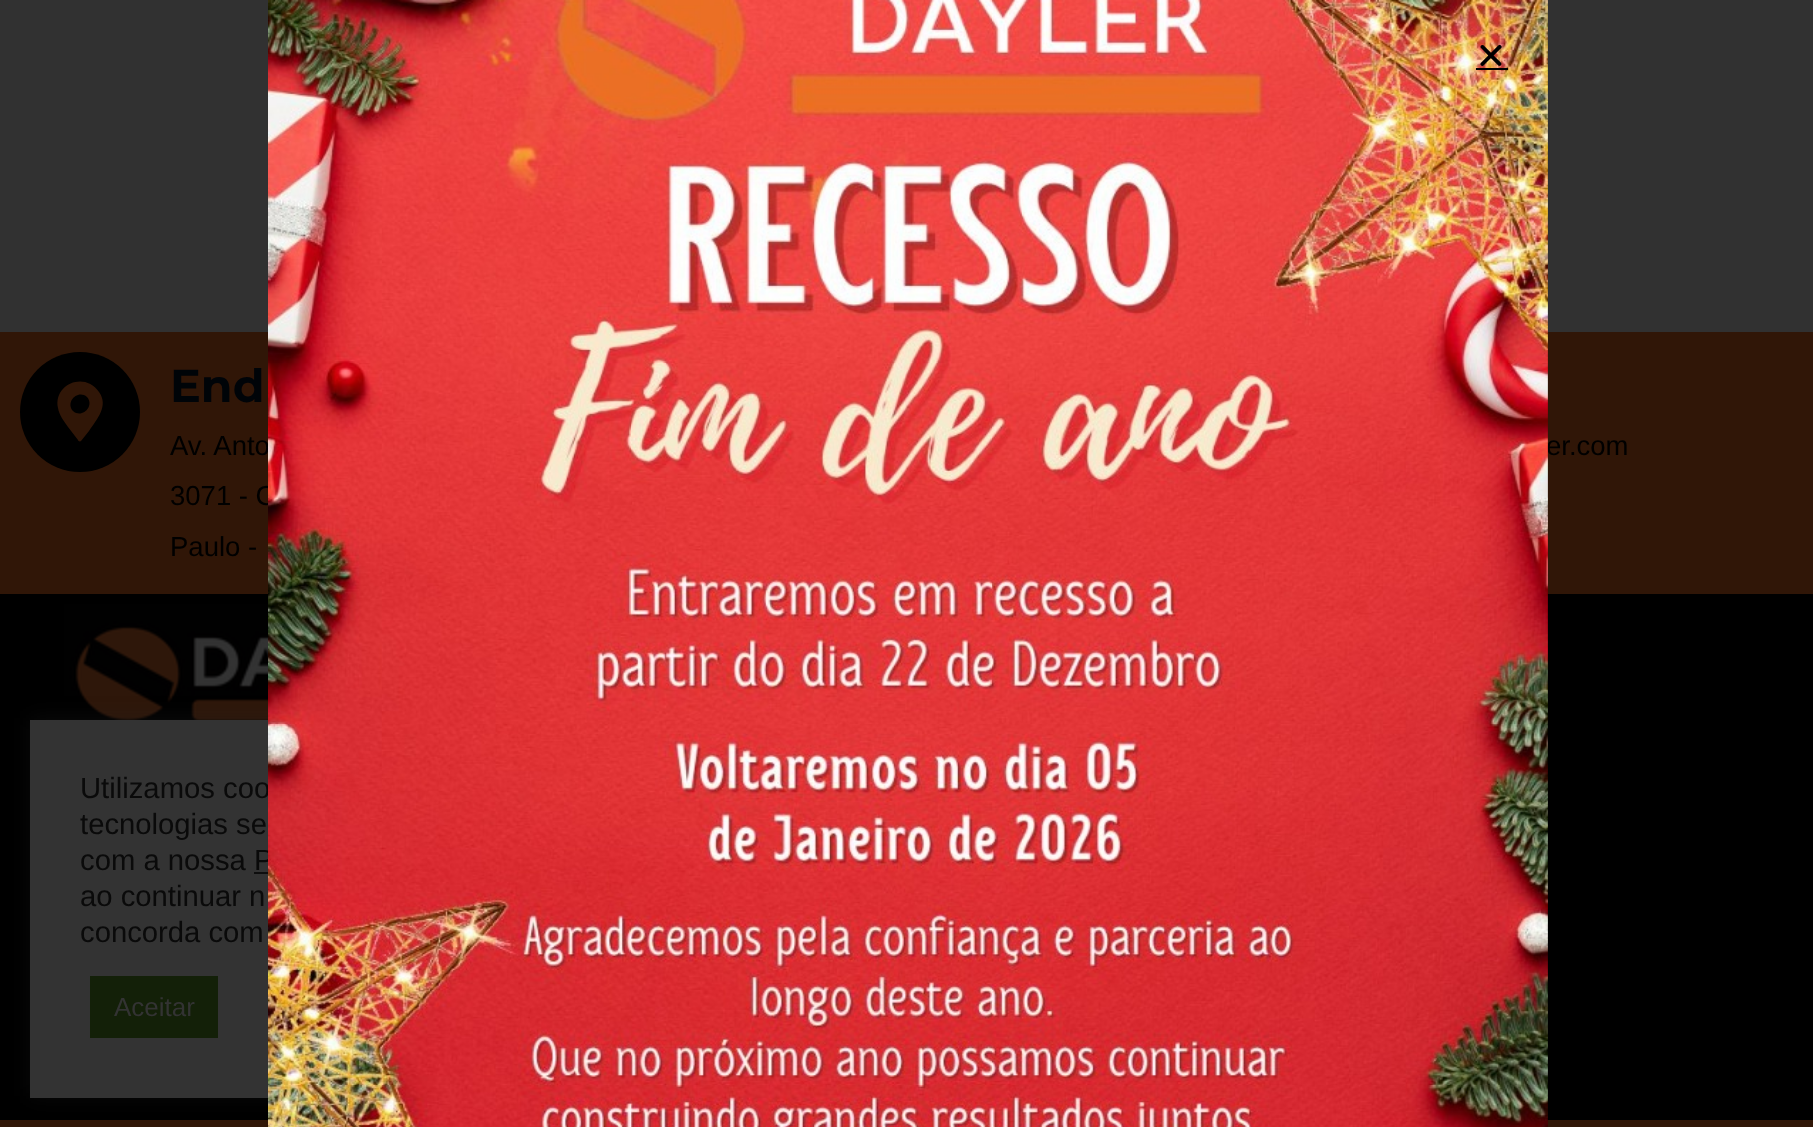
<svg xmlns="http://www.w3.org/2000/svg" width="1813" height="1127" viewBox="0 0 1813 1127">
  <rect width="100%" height="100%" fill="rgb(49,49,49)"/>
  <rect x="0" y="332" width="268" height="262" fill="rgb(48,22,7)"/>
  <g font-family="Liberation Sans" font-size="27.5" fill="rgb(0,0,0)">
    <text>
      <tspan x="170" y="455">Av. Anto</tspan>
      <tspan x="170" y="505">3071 - C</tspan>
    </text>
  </g>
  <rect x="1547" y="332" width="266" height="262" fill="rgb(48,22,7)"/>
  <text x="1546" y="455" font-family="Liberation Sans" font-size="27.5" fill="rgb(0,0,0)">er.com</text>
  <rect x="0" y="594" width="1813" height="526" fill="rgb(0,0,0)"/>
  <rect x="0" y="1120" width="1813" height="7" fill="rgb(48,22,7)"/>
  <image x="64" y="604" width="204" height="116" href="pic3.png"/>
  <rect x="30" y="718" width="600" height="378" fill="rgba(34,34,34,0.3)" filter="blur(10px)"/>
  <rect x="30" y="720" width="238" height="378" fill="rgb(51,51,51)"/>
  <g font-family="Liberation Sans" font-size="29.25" fill="rgb(10,10,10)">
    <text x="80" y="798">Utilizamos coo</text>
    <text x="254" y="870">P</text>
  </g>
  <image x="268" y="0" width="1280" height="1127" href="pic1.png"/>
  <image x="1480" y="44" width="22" height="22" href="pic2.png"/>
  <rect x="1476" y="68" width="32" height="2" fill="rgb(0,0,0)"/>
  <circle cx="80" cy="412" r="60" fill="rgb(0,0,0)"/>
  <path d="M78 440L68 427C64 421 59 415 58 408C53 384 85 371 99 392C109 406 97 419 89 431L81 441C80 442 78 441 78 440ZM73 411C82 419 95 406 87 397C78 389 65 402 73 411Z" fill="rgb(48,22,7)"/>
  <text x="170" y="402" font-family="Montserrat" font-size="46" font-weight="bold" fill="rgb(0,4,8)">End</text>
  <text x="170" y="556" font-family="Liberation Sans" font-size="27.5" fill="rgb(0,0,0)">Paulo -</text>
  <g font-family="Liberation Sans" font-size="29.25" fill="rgb(10,10,10)">
    <text>
      <tspan x="80" y="834">tecnologias se</tspan>
      <tspan x="80" y="870">com a nossa</tspan>
    </text>
  </g>
  <rect x="254" y="872" width="14" height="2" fill="rgb(14,14,14)"/>
  <g font-family="Liberation Sans" font-size="29.25" fill="rgb(10,10,10)">
    <text>
      <tspan x="80" y="906">ao continuar n</tspan>
      <tspan x="80" y="942">concorda com</tspan>
    </text>
  </g>
  <rect x="90" y="976" width="128" height="62" fill="rgb(19,32,8)"/>
  <text x="114" y="1016" font-family="Liberation Sans" font-size="26" fill="rgb(51,51,51)">Aceitar</text>
</svg>
